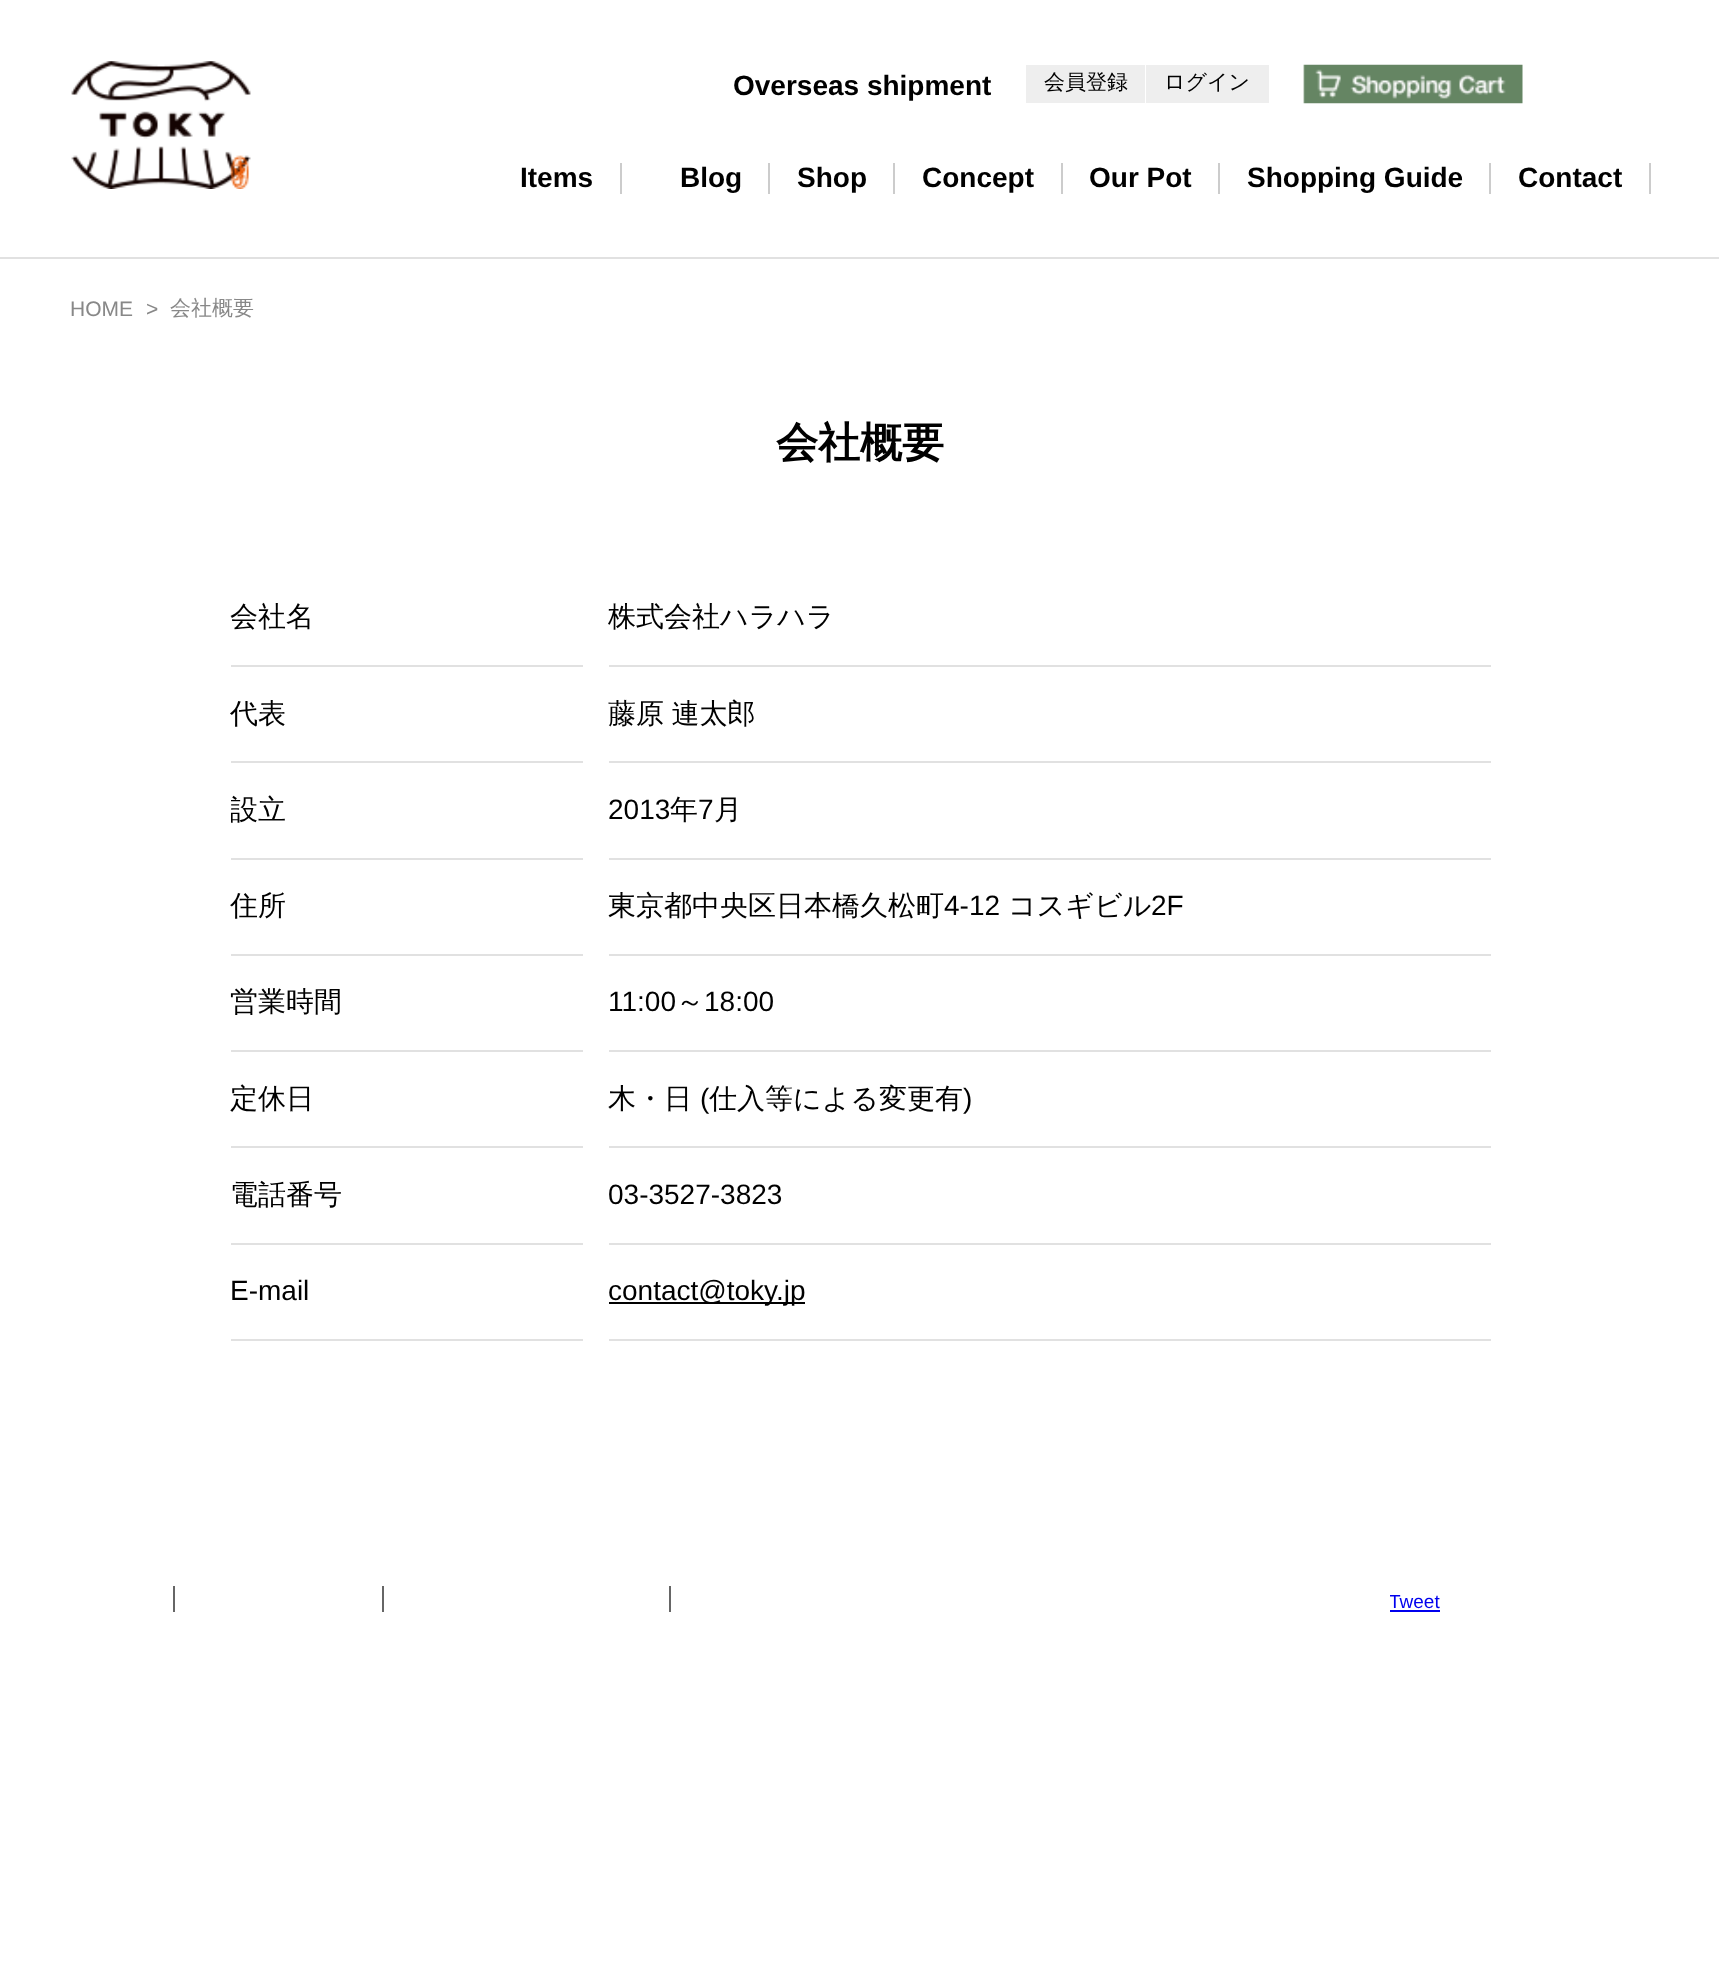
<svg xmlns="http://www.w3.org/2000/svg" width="1719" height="1988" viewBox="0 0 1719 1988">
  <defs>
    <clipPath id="clip1"><rect x="231" y="761" width="1260" height="70"/></clipPath>
    <clipPath id="clip2"><rect x="1390" y="1586" width="50" height="26"/></clipPath>
  </defs>
  <rect width="100%" height="100%" fill="rgb(255,255,255)"/>
  <image x="71" y="61" width="180" height="128" href="pic1.png"/>
  <text x="733" y="95" font-family="Liberation Sans" font-size="28" font-weight="bold" fill="rgb(0,0,0)">Overseas shipment</text>
  <rect x="1026" y="65" width="119" height="38" fill="rgb(238,238,238)"/>
  <text x="1044" y="89" font-family="WenQuanYi Zen Hei" font-size="21" font-weight="500" fill="rgb(0,0,0)">会員登録</text>
  <rect x="1146" y="65" width="123" height="38" fill="rgb(238,238,238)"/>
  <text x="1164" y="89" font-family="WenQuanYi Zen Hei" font-size="21" font-weight="500" fill="rgb(0,0,0)">ログイン</text>
  <image x="1303" y="64" width="220" height="40" href="pic2.png"/>
  <rect x="620" y="163" width="2" height="31" fill="rgb(204,204,204)"/>
  <text x="520" y="187" font-family="Liberation Sans" font-size="28" font-weight="bold" fill="rgb(0,0,0)">Items</text>
  <rect x="768" y="163" width="2" height="31" fill="rgb(204,204,204)"/>
  <text x="680" y="187" font-family="Liberation Sans" font-size="28" font-weight="bold" fill="rgb(0,0,0)">Blog</text>
  <rect x="893" y="163" width="2" height="31" fill="rgb(204,204,204)"/>
  <text x="797" y="187" font-family="Liberation Sans" font-size="28" font-weight="bold" fill="rgb(0,0,0)">Shop</text>
  <rect x="1061" y="163" width="2" height="31" fill="rgb(204,204,204)"/>
  <text x="922" y="187" font-family="Liberation Sans" font-size="28" font-weight="bold" fill="rgb(0,0,0)">Concept</text>
  <rect x="1218" y="163" width="2" height="31" fill="rgb(204,204,204)"/>
  <text x="1089" y="187" font-family="Liberation Sans" font-size="28" font-weight="bold" fill="rgb(0,0,0)">Our Pot</text>
  <rect x="1489" y="163" width="2" height="31" fill="rgb(204,204,204)"/>
  <text x="1247" y="187" font-family="Liberation Sans" font-size="28" font-weight="bold" fill="rgb(0,0,0)">Shopping Guide</text>
  <rect x="1649" y="163" width="2" height="31" fill="rgb(204,204,204)"/>
  <text x="1518" y="187" font-family="Liberation Sans" font-size="28" font-weight="bold" fill="rgb(0,0,0)">Contact</text>
  <rect x="0" y="257" width="1719" height="2" fill="rgb(225,225,225)"/>
  <g font-family="Liberation Sans" font-size="21" fill="rgb(136,136,136)">
    <text x="70" y="316">HOME</text>
    <text x="146" y="316">&gt;</text>
  </g>
  <text x="170" y="315" font-family="WenQuanYi Zen Hei" font-size="21" font-weight="500" fill="rgb(136,136,136)">会社概要</text>
  <text x="776" y="457" font-family="WenQuanYi Zen Hei" font-size="42" font-weight="bold" fill="rgb(0,0,0)">会社概要</text>
  <g font-family="WenQuanYi Zen Hei" font-size="28" font-weight="500" fill="rgb(0,0,0)">
    <text x="230" y="626">会社名</text>
    <text x="608" y="626">株式会社ハラハラ</text>
  </g>
  <rect x="231" y="665" width="352" height="2" fill="rgb(225,225,225)"/>
  <text x="230" y="723" font-family="WenQuanYi Zen Hei" font-size="28" font-weight="500" fill="rgb(0,0,0)">代表</text>
  <rect x="609" y="665" width="882" height="2" fill="rgb(225,225,225)"/>
  <text x="608" y="723" word-spacing="-1" font-family="WenQuanYi Zen Hei" font-size="28" font-weight="500" fill="rgb(0,0,0)">藤原 連太郎</text>
  <rect x="231" y="761" width="352" height="2" fill="rgb(225,225,225)"/>
  <g clip-path="url(#clip1)">
    <text x="230" y="819" font-family="WenQuanYi Zen Hei" font-size="28" font-weight="500" fill="rgb(0,0,0)">設立</text>
  </g>
  <rect x="609" y="761" width="882" height="2" fill="rgb(225,225,225)"/>
  <text x="608" y="819" font-family="Liberation Sans" font-size="28" fill="rgb(0,0,0)">2013</text>
  <text x="670" y="819" font-family="WenQuanYi Zen Hei" font-size="28" font-weight="500" fill="rgb(0,0,0)">年</text>
  <text x="698" y="819" font-family="Liberation Sans" font-size="28" fill="rgb(0,0,0)">7</text>
  <text x="714" y="819" font-family="WenQuanYi Zen Hei" font-size="28" font-weight="500" fill="rgb(0,0,0)">月</text>
  <rect x="231" y="858" width="352" height="2" fill="rgb(225,225,225)"/>
  <text x="230" y="915" font-family="WenQuanYi Zen Hei" font-size="28" font-weight="500" fill="rgb(0,0,0)">住所</text>
  <rect x="609" y="858" width="882" height="2" fill="rgb(225,225,225)"/>
  <text x="608" y="915" font-family="WenQuanYi Zen Hei" font-size="28" font-weight="500" fill="rgb(0,0,0)">東京都中央区日本橋久松町</text>
  <text x="944" y="915" font-family="Liberation Sans" font-size="28" fill="rgb(0,0,0)">4-12</text>
  <text x="1008" y="915" font-family="WenQuanYi Zen Hei" font-size="28" font-weight="500" fill="rgb(0,0,0)">コスギビル</text>
  <text x="1151" y="915" font-family="Liberation Sans" font-size="28" fill="rgb(0,0,0)">2F</text>
  <rect x="231" y="954" width="352" height="2" fill="rgb(225,225,225)"/>
  <text x="230" y="1011" font-family="WenQuanYi Zen Hei" font-size="28" font-weight="500" fill="rgb(0,0,0)">営業時間</text>
  <rect x="609" y="954" width="882" height="2" fill="rgb(225,225,225)"/>
  <text x="608" y="1011" font-family="Liberation Sans" font-size="28" fill="rgb(0,0,0)">11:00</text>
  <text x="676" y="1011" font-family="WenQuanYi Zen Hei" font-size="28" font-weight="500" fill="rgb(0,0,0)">～</text>
  <text x="704" y="1011" font-family="Liberation Sans" font-size="28" fill="rgb(0,0,0)">18:00</text>
  <rect x="231" y="1050" width="352" height="2" fill="rgb(225,225,225)"/>
  <text x="230" y="1108" font-family="WenQuanYi Zen Hei" font-size="28" font-weight="500" fill="rgb(0,0,0)">定休日</text>
  <rect x="609" y="1050" width="882" height="2" fill="rgb(225,225,225)"/>
  <text x="608" y="1108" font-family="WenQuanYi Zen Hei" font-size="28" font-weight="500" fill="rgb(0,0,0)">木・日</text>
  <text x="700" y="1108" font-family="Liberation Sans" font-size="28" fill="rgb(0,0,0)">(</text>
  <text x="709" y="1108" font-family="WenQuanYi Zen Hei" font-size="28" font-weight="500" fill="rgb(0,0,0)">仕入等による変更有</text>
  <text x="963" y="1108" font-family="Liberation Sans" font-size="28" fill="rgb(0,0,0)">)</text>
  <rect x="231" y="1146" width="352" height="2" fill="rgb(225,225,225)"/>
  <text x="230" y="1204" font-family="WenQuanYi Zen Hei" font-size="28" font-weight="500" fill="rgb(0,0,0)">電話番号</text>
  <rect x="609" y="1146" width="882" height="2" fill="rgb(225,225,225)"/>
  <text x="608" y="1204" font-family="Liberation Sans" font-size="28" fill="rgb(0,0,0)">03-3527-3823</text>
  <rect x="231" y="1243" width="352" height="2" fill="rgb(225,225,225)"/>
  <text x="230" y="1300" font-family="Liberation Sans" font-size="28" fill="rgb(0,0,0)">E-mail</text>
  <rect x="609" y="1243" width="882" height="2" fill="rgb(225,225,225)"/>
  <rect x="609" y="1302" width="196" height="2" fill="rgb(0,0,0)"/>
  <text x="608" y="1300" font-family="Liberation Sans" font-size="28" fill="rgb(0,0,0)">contact@toky.jp</text>
  <rect x="231" y="1339" width="352" height="2" fill="rgb(225,225,225)"/>
  <rect x="609" y="1339" width="882" height="2" fill="rgb(225,225,225)"/>
  <rect x="173" y="1586" width="2" height="26" fill="rgb(102,102,102)"/>
  <rect x="382" y="1586" width="2" height="26" fill="rgb(102,102,102)"/>
  <rect x="669" y="1586" width="2" height="26" fill="rgb(102,102,102)"/>
  <g clip-path="url(#clip2)">
    <text x="1389" y="1608" font-family="Liberation Sans" font-size="19" fill="rgb(0,0,238)">Tweet</text>
  </g>
  <rect x="1390" y="1610" width="50" height="2" fill="rgb(0,0,238)"/>
</svg>
